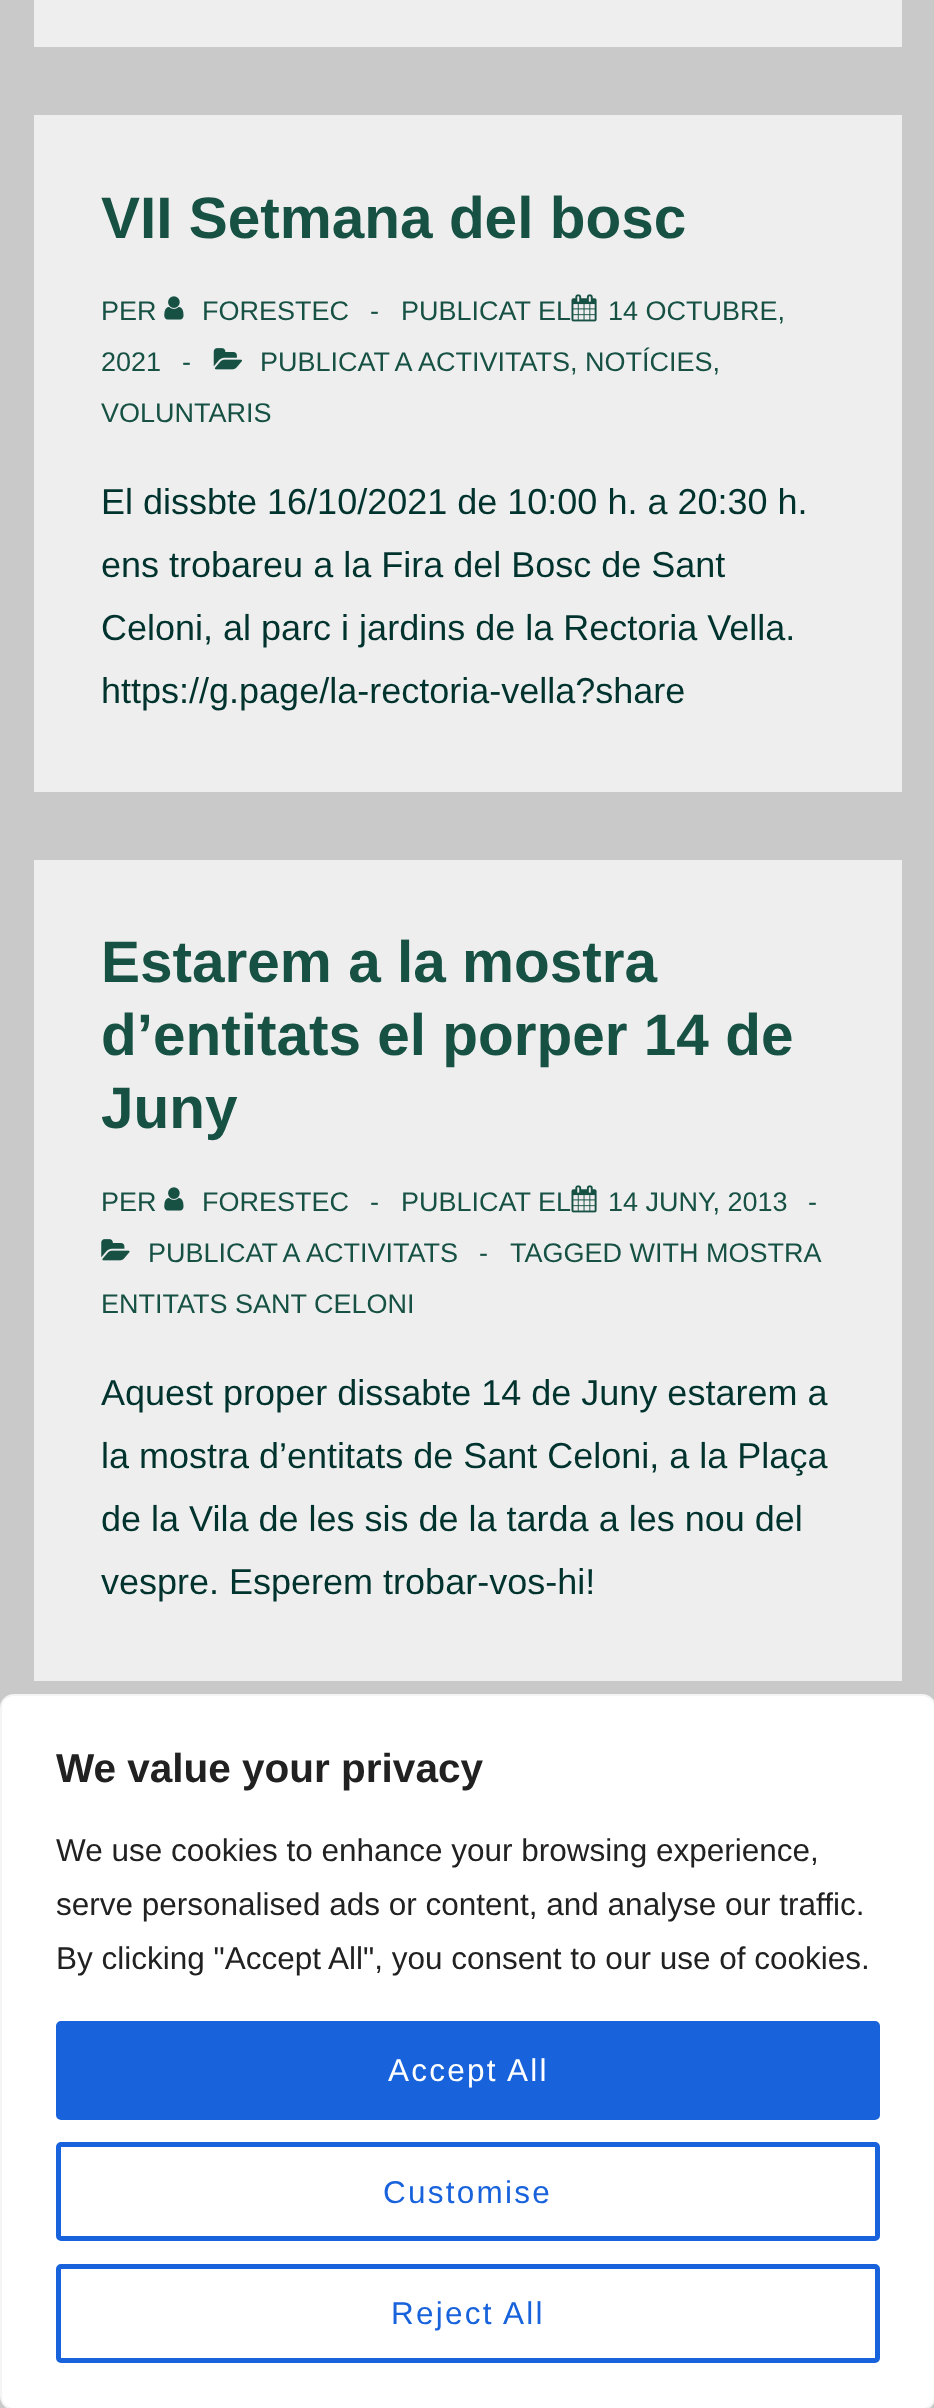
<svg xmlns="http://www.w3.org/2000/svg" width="934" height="2408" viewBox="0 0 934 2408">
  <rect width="100%" height="100%" fill="rgb(201,201,201)"/>
  <rect x="34" y="0" width="868" height="47" fill="rgb(238,238,238)"/>
  <rect x="34" y="115" width="868" height="677" fill="rgb(238,238,238)"/>
  <text x="101" y="238" font-family="Liberation Sans" font-size="58.5" font-weight="bold" fill="rgb(22,81,68)">VII Setmana del bosc</text>
  <text x="101" y="320" font-family="Liberation Sans" font-size="27" fill="rgb(22,81,68)">PER</text>
  <image x="164" y="296" width="20" height="24" href="pic1.png"/>
  <g font-family="Liberation Sans" font-size="27" fill="rgb(22,81,68)">
    <text x="202" y="320">FORESTEC</text>
    <text x="370" y="320">-</text>
    <text x="401" y="320">PUBLICAT EL</text>
  </g>
  <image x="571" y="294" width="26" height="28" href="pic2.png"/>
  <g font-family="Liberation Sans" font-size="27" fill="rgb(22,81,68)">
    <text x="608" y="320">14 OCTUBRE,</text>
    <text x="101" y="371">2021</text>
    <text x="182" y="371">-</text>
  </g>
  <image x="213" y="348" width="29" height="22" href="pic3.png"/>
  <g font-family="Liberation Sans" font-size="27" fill="rgb(22,81,68)">
    <text x="260" y="371" word-spacing="-1">PUBLICAT A</text>
    <text x="418" y="371">ACTIVITATS, NOTÍCIES,</text>
    <text x="101" y="422">VOLUNTARIS</text>
  </g>
  <g font-family="Liberation Sans" font-size="36" fill="rgb(1,51,46)">
    <text>
      <tspan x="101" y="514">El dissbte 16/10/2021 de 10:00 h. a 20:30 h.</tspan>
      <tspan x="101" y="577">ens trobareu a la Fira del Bosc de Sant</tspan>
      <tspan x="101" y="640">Celoni, al parc i jardins de la Rectoria Vella.</tspan>
      <tspan x="101" y="703">https://g.page/la-rectoria-vella?share</tspan>
    </text>
  </g>
  <rect x="34" y="860" width="868" height="821" fill="rgb(238,238,238)"/>
  <g font-family="Liberation Sans" font-size="58.5" font-weight="bold" fill="rgb(22,81,68)">
    <text>
      <tspan x="101" y="982">Estarem a la mostra</tspan>
      <tspan x="101" y="1055">d’entitats el porper 14 de</tspan>
      <tspan x="101" y="1128">Juny</tspan>
    </text>
  </g>
  <text x="101" y="1211" font-family="Liberation Sans" font-size="27" fill="rgb(22,81,68)">PER</text>
  <image x="164" y="1187" width="20" height="24" href="pic1.png"/>
  <g font-family="Liberation Sans" font-size="27" fill="rgb(22,81,68)">
    <text x="202" y="1211">FORESTEC</text>
    <text x="370" y="1211">-</text>
    <text x="401" y="1211">PUBLICAT EL</text>
  </g>
  <image x="571" y="1185" width="26" height="28" href="pic2.png"/>
  <g font-family="Liberation Sans" font-size="27" fill="rgb(22,81,68)">
    <text x="608" y="1211">14 JUNY, 2013</text>
    <text x="808" y="1211">-</text>
  </g>
  <image x="101" y="1239" width="29" height="22" href="pic4.png"/>
  <g font-family="Liberation Sans" font-size="27" fill="rgb(22,81,68)">
    <text x="148" y="1262" word-spacing="-1">PUBLICAT A</text>
    <text x="306" y="1262">ACTIVITATS</text>
    <text x="479" y="1262">-</text>
    <text x="510" y="1262">TAGGED WITH MOSTRA</text>
    <text x="101" y="1313">ENTITATS SANT CELONI</text>
  </g>
  <g font-family="Liberation Sans" font-size="36" fill="rgb(1,51,46)">
    <text>
      <tspan x="101" y="1405">Aquest proper dissabte 14 de Juny estarem a</tspan>
      <tspan x="101" y="1468">la mostra d’entitats de Sant Celoni, a la Plaça</tspan>
      <tspan x="101" y="1531">de la Vila de les sis de la tarda a les nou del</tspan>
      <tspan x="101" y="1594">vespre. Esperem trobar-vos-hi!</tspan>
    </text>
  </g>
  <rect x="1" y="1695" width="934" height="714" rx="13" fill="rgb(255,255,255)" stroke="rgb(244,244,244)" stroke-width="2"/>
  <text x="56" y="1782" font-family="Liberation Sans" font-size="40.5" font-weight="bold" fill="rgb(33,33,33)">We value your privacy</text>
  <g font-family="Liberation Sans" font-size="31.5" fill="rgb(33,33,33)">
    <text>
      <tspan x="56" y="1861">We use cookies to enhance your browsing experience,</tspan>
      <tspan x="56" y="1915">serve personalised ads or content, and analyse our traffic.</tspan>
      <tspan x="56" y="1969">By clicking "Accept All", you consent to our use of cookies.</tspan>
    </text>
  </g>
  <rect x="58.5" y="2023.5" width="819" height="94" rx="2.5" fill="rgb(24,99,220)" stroke="rgb(24,99,220)" stroke-width="5"/>
  <text x="388" y="2081" font-family="Liberation Sans" font-size="31.5" letter-spacing="2.25" fill="rgb(255,255,255)">Accept All</text>
  <rect x="58.5" y="2144.5" width="819" height="94" rx="2.5" fill="none" stroke="rgb(24,99,220)" stroke-width="5"/>
  <text x="383" y="2203" font-family="Liberation Sans" font-size="31.5" letter-spacing="2.25" fill="rgb(24,99,220)">Customise</text>
  <rect x="58.5" y="2266.5" width="819" height="94" rx="2.5" fill="none" stroke="rgb(24,99,220)" stroke-width="5"/>
  <text x="391" y="2324" font-family="Liberation Sans" font-size="31.5" letter-spacing="2.25" fill="rgb(24,99,220)">Reject All</text>
</svg>
